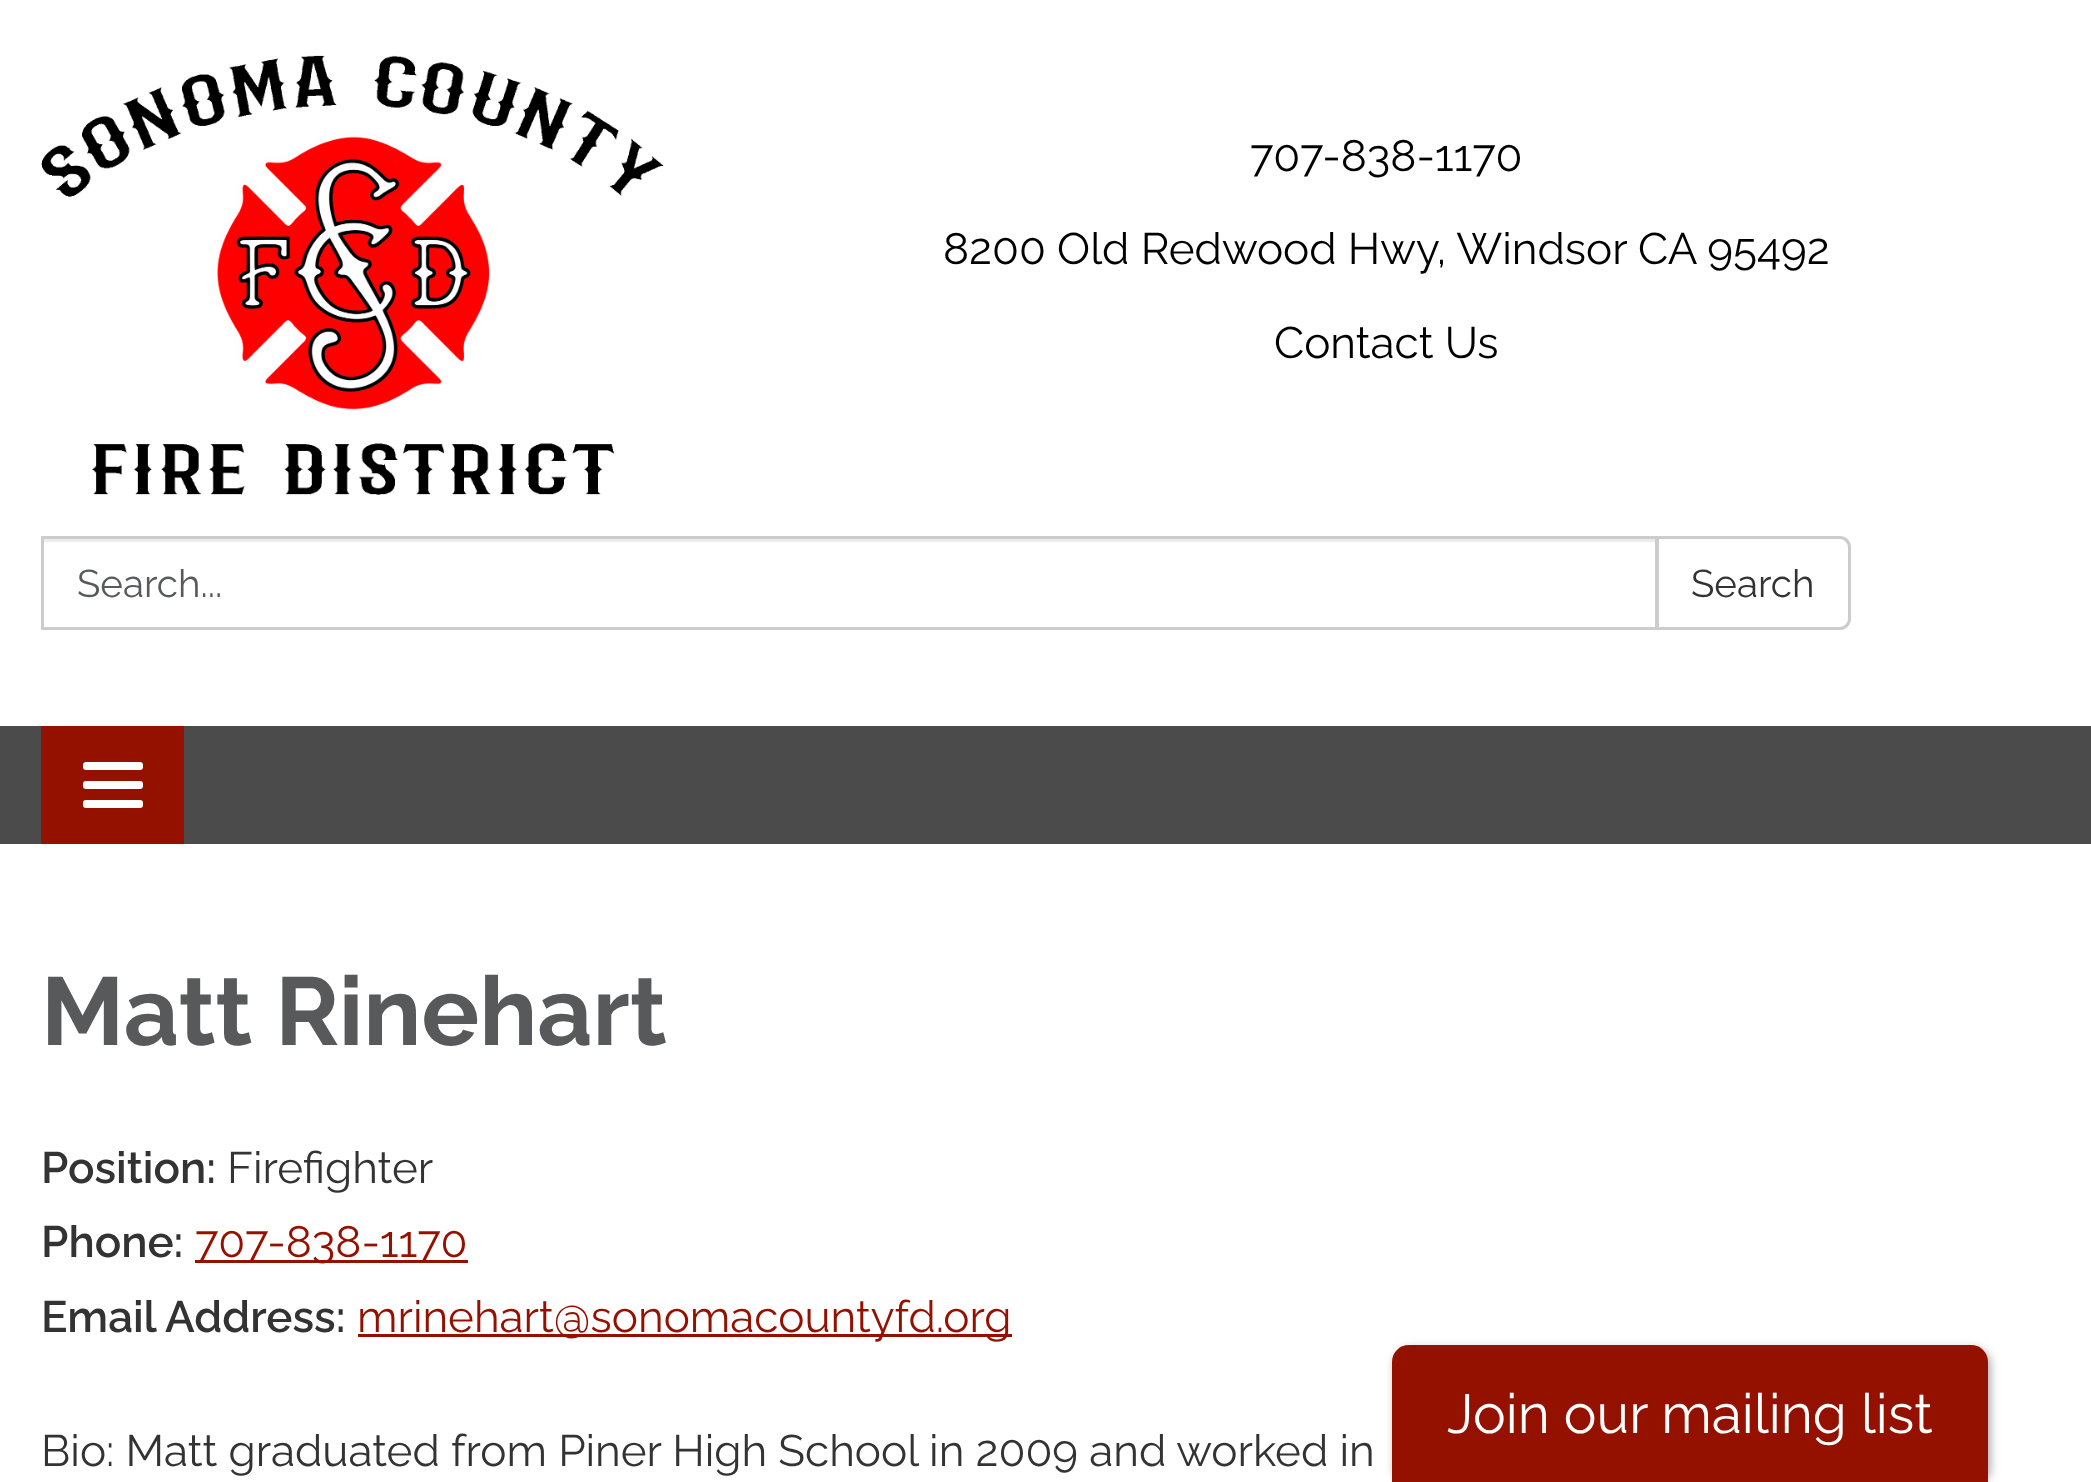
<svg xmlns="http://www.w3.org/2000/svg" width="2091" height="1482" viewBox="0 0 2091 1482">
  <rect width="100%" height="100%" fill="rgb(75,75,75)"/>
  <rect x="0" y="0" width="2091" height="726" fill="rgb(255,255,255)"/>
  <image x="41" y="55" width="623" height="440" href="pic1.png"/>
  <g font-family="Raleway" font-size="44" fill="rgb(0,0,0)">
    <text x="1250" y="171">707-838-1170</text>
    <text x="943" y="264">8200 Old Redwood Hwy, Windsor CA 95492</text>
    <text x="1274" y="358">Contact Us</text>
  </g>
  <rect x="44" y="539" width="1612" height="3" fill="rgb(236,236,236)"/>
  <rect x="42.5" y="537.5" width="1614" height="91" fill="none" stroke="rgb(204,204,204)" stroke-width="3"/>
  <text x="77" y="597" font-family="Raleway" font-size="38.5" fill="rgb(88,89,91)">Search...</text>
  <path d="M1657.5 537.5H1840C1845 537.5 1849.5 542 1849.5 547V619C1849.5 624 1845 628.5 1840 628.5H1657.5Z" fill="rgb(255,255,255)" stroke="rgb(204,204,204)" stroke-width="3"/>
  <text x="1691" y="597" font-family="Raleway" font-size="38.5" fill="rgb(51,51,51)">Search</text>
  <rect x="41" y="726" width="143" height="118" fill="rgb(148,17,0)"/>
  <rect x="83" y="762" width="60" height="8" rx="3" fill="rgb(255,255,255)"/>
  <rect x="83" y="781" width="60" height="8" rx="3" fill="rgb(255,255,255)"/>
  <rect x="83" y="800" width="60" height="8" rx="3" fill="rgb(255,255,255)"/>
  <rect x="0" y="844" width="2091" height="638" fill="rgb(255,255,255)"/>
  <text x="41" y="1045" font-family="Raleway" font-size="96.25" font-weight="bold" fill="rgb(88,89,91)">Matt Rinehart</text>
  <text x="41" y="1183" font-family="Raleway" font-size="44" font-weight="600" fill="rgb(51,51,51)">Position:</text>
  <text x="227" y="1183" font-family="Raleway" font-size="44" fill="rgb(51,51,51)">Firefighter</text>
  <text x="41" y="1257" font-family="Raleway" font-size="44" font-weight="600" fill="rgb(51,51,51)">Phone:</text>
  <rect x="195" y="1260" width="273" height="3" fill="rgb(148,17,0)"/>
  <text x="195" y="1257" font-family="Raleway" font-size="44" fill="rgb(148,17,0)">707-838-1170</text>
  <text x="41" y="1332" font-family="Raleway" font-size="44" font-weight="600" fill="rgb(51,51,51)">Email Address:</text>
  <rect x="358" y="1334" width="654" height="3" fill="rgb(148,17,0)"/>
  <text x="357" y="1332" font-family="Raleway" font-size="44" fill="rgb(148,17,0)">mrinehart@sonomacountyfd.org</text>
  <text x="41" y="1466" font-family="Raleway" font-size="44" fill="rgb(51,51,51)">Bio: Matt graduated from Piner High School in 2009 and worked in</text>
  <rect x="1394" y="1348" width="597" height="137" rx="17" fill="rgba(0,0,0,0.3)" filter="blur(4px)"/>
  <path d="M1409 1345H1971C1980.5 1345 1988 1352.5 1988 1362V1482H1392V1362C1392 1352.5 1399.5 1345 1409 1345Z" fill="rgb(148,17,0)"/>
  <text x="1447" y="1433" font-family="Raleway" font-size="55" fill="rgb(255,255,255)">Join our mailing list</text>
</svg>
